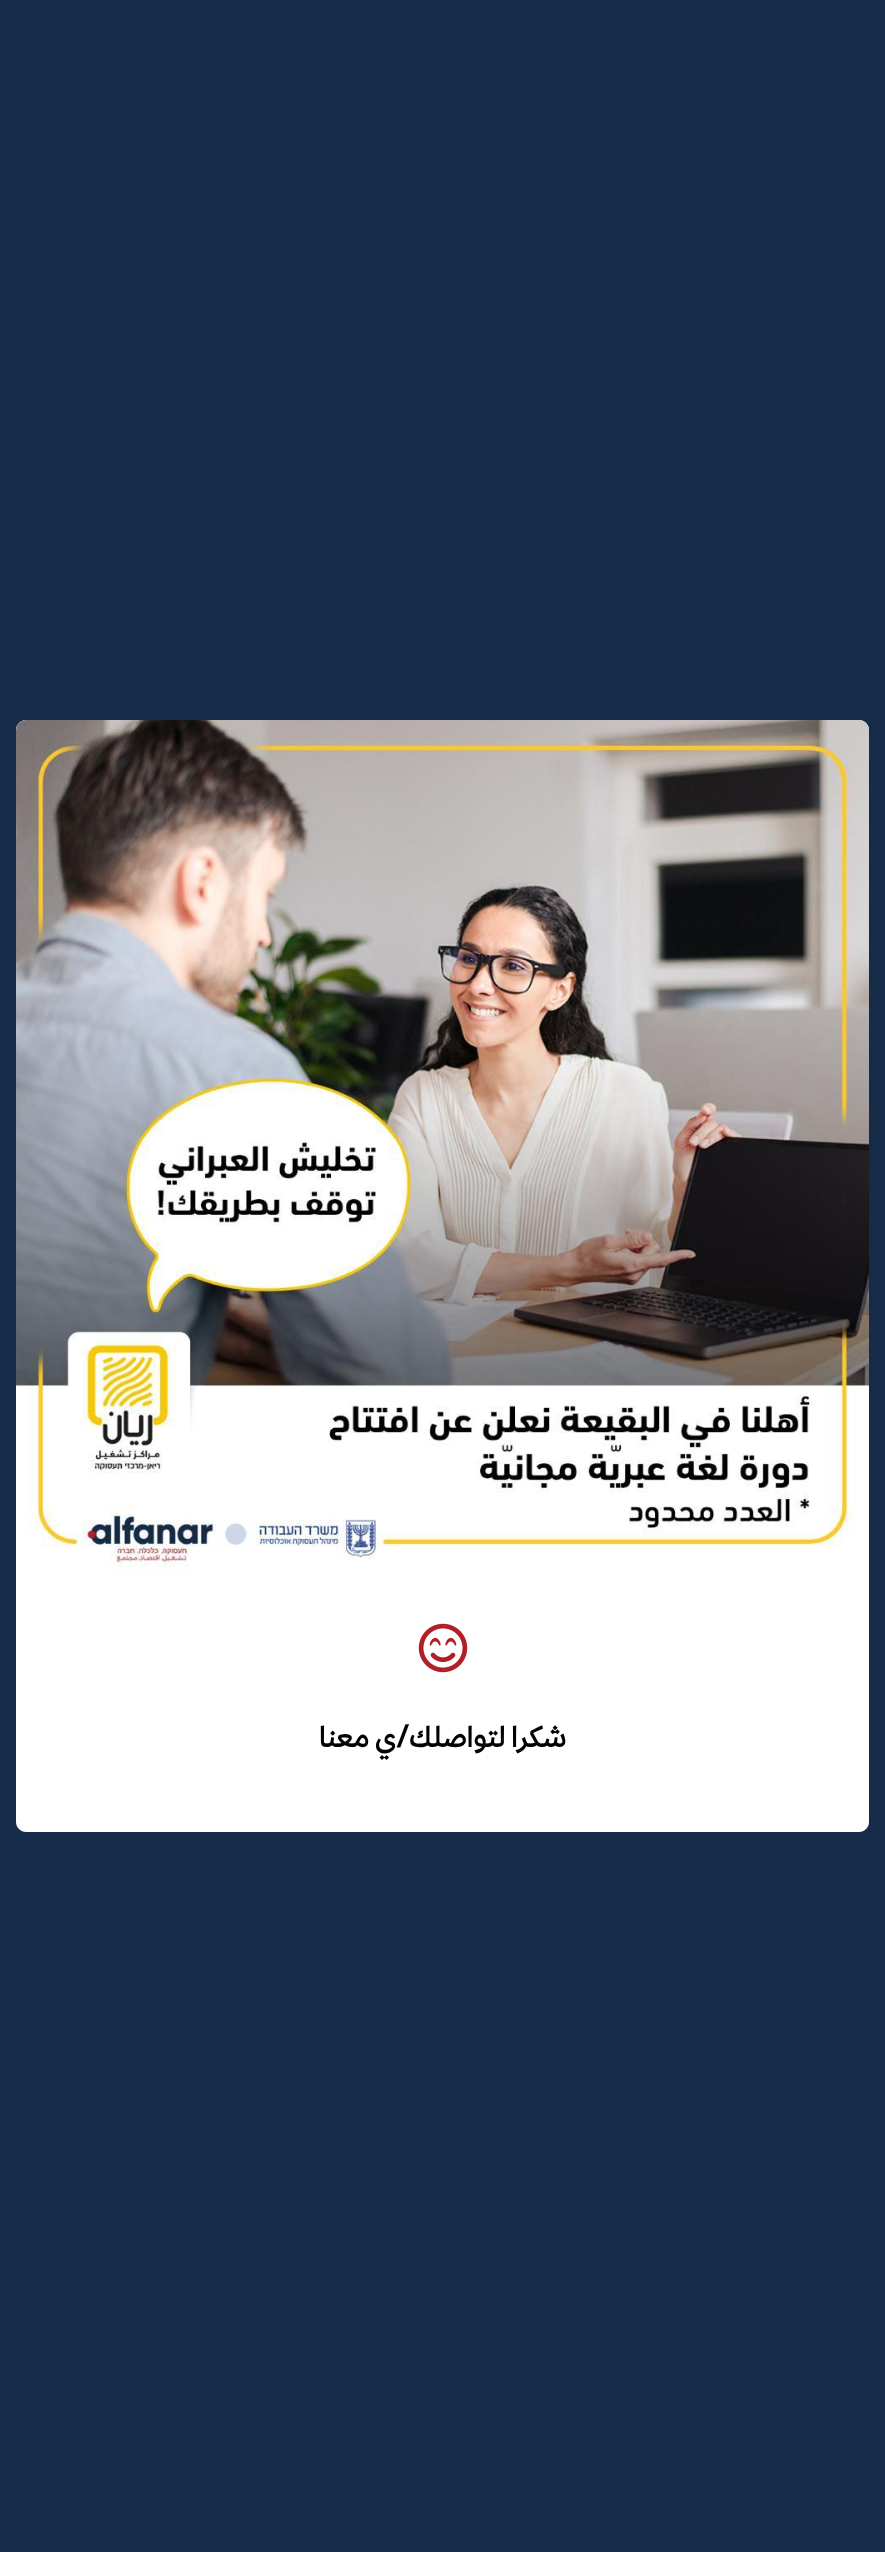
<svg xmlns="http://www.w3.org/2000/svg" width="885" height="2552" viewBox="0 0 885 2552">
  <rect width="100%" height="100%" fill="rgb(22,43,71)"/>
  <path d="M26 720H859C864.5 720 869 724.5 869 730V1573H16V730C16 724.5 20.5 720 26 720Z" fill="rgb(255,255,255)"/>
  <image x="16" y="720" width="853" height="853" href="pic1.png"/>
  <path d="M16 1573H869V1822C869 1827.5 864.5 1832 859 1832H26C20.5 1832 16 1827.5 16 1822Z" fill="rgb(255,255,255)"/>
  <image x="418" y="1623" width="50" height="50" href="pic2.png"/>
  <text x="566" y="1747" font-family="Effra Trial" font-size="32" font-weight="bold" direction="rtl" fill="rgb(3,3,3)">شكرا لتواصلك/ي معنا</text>
</svg>
